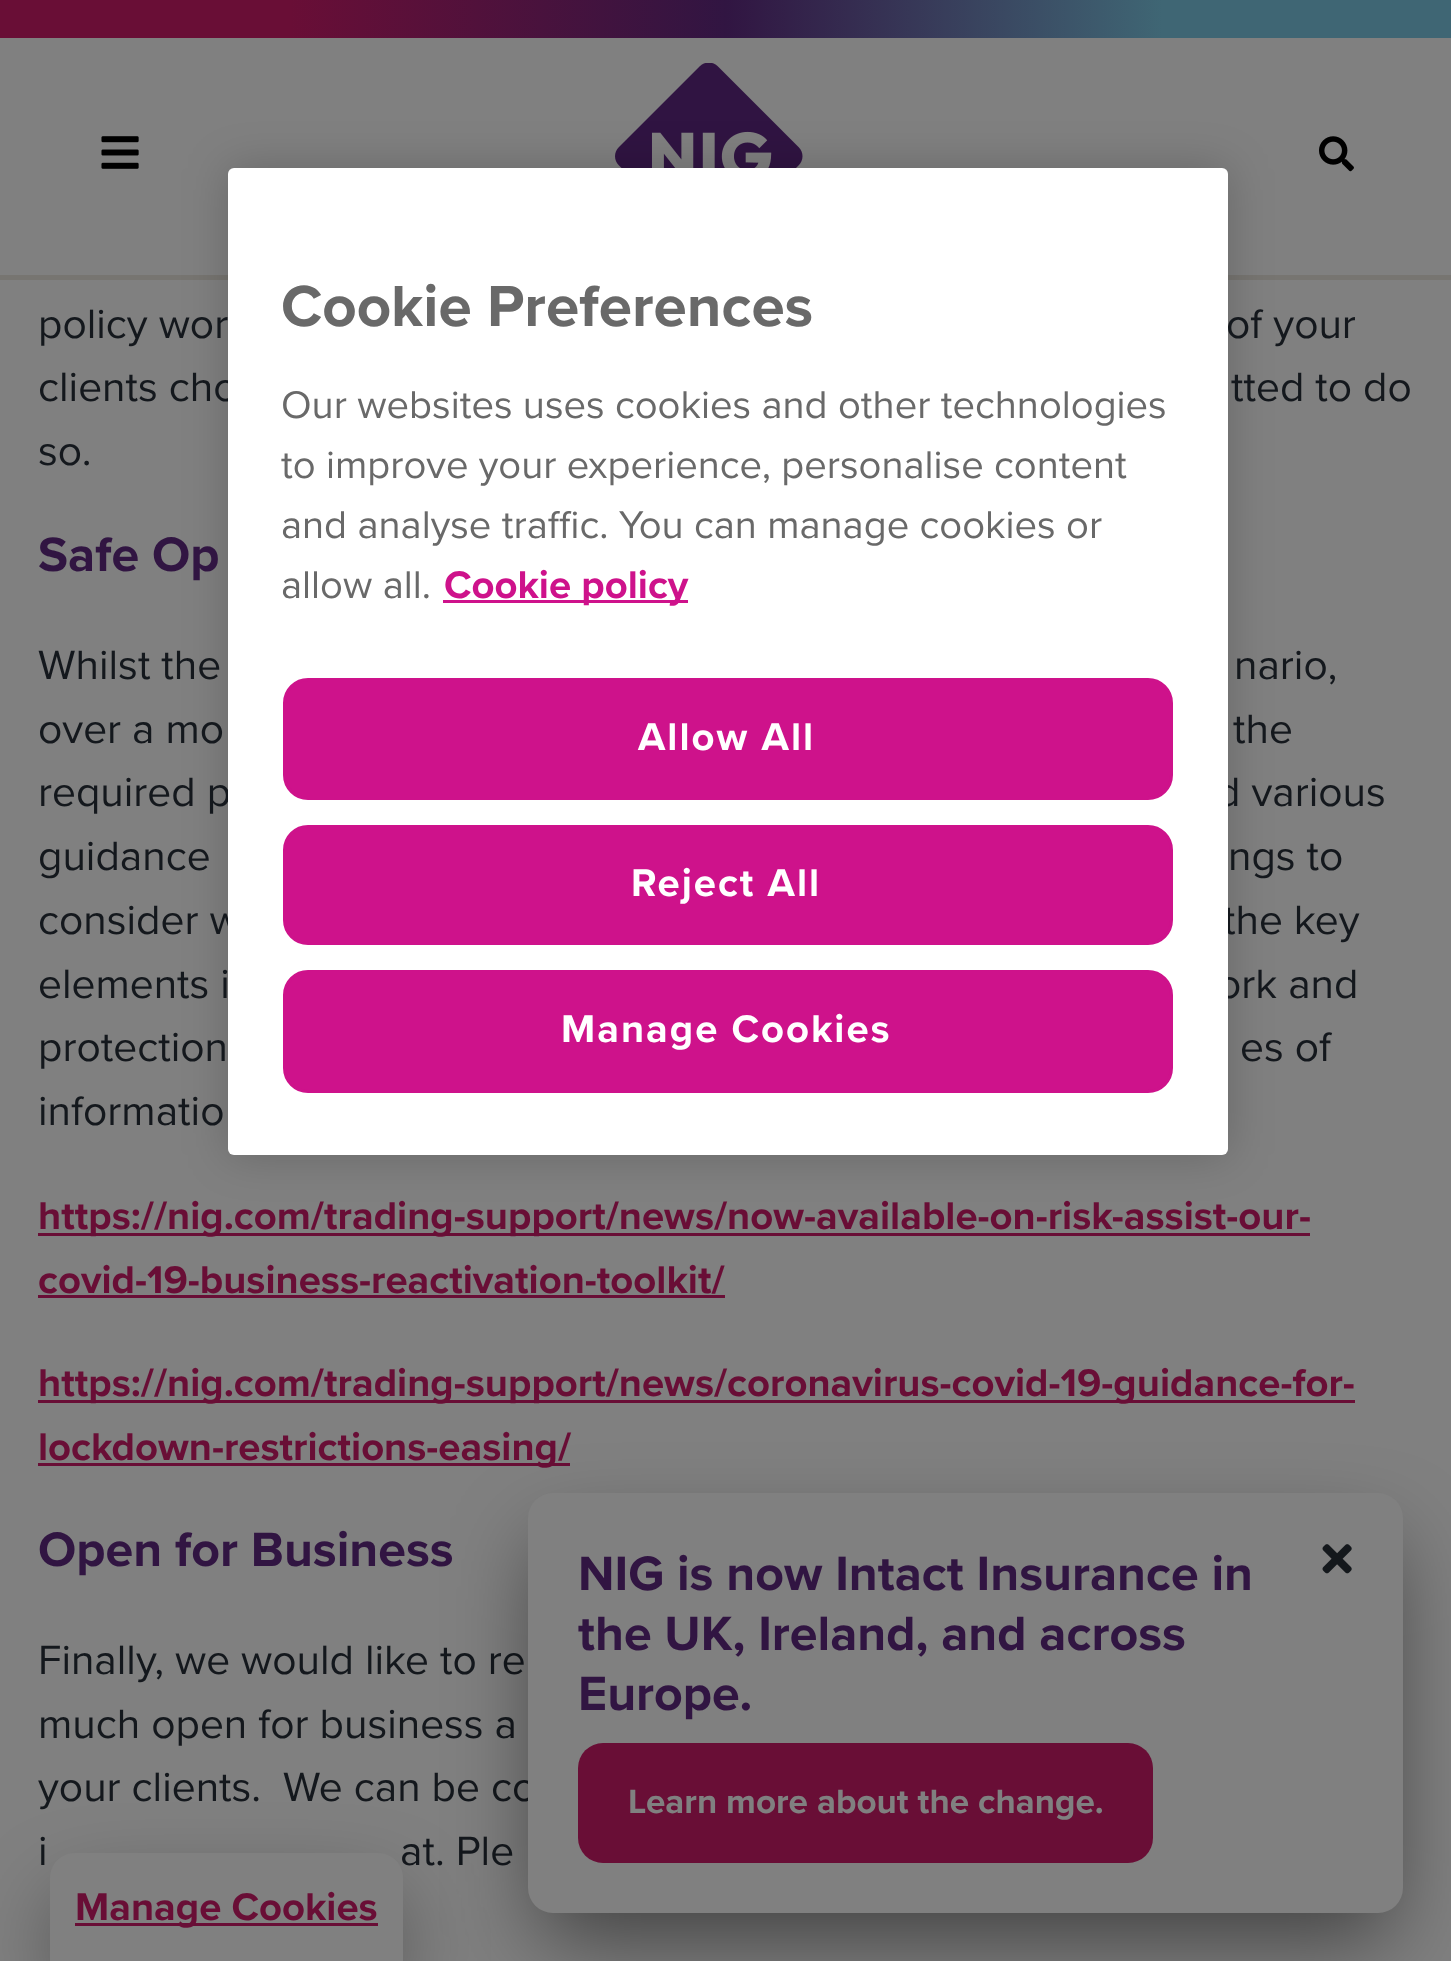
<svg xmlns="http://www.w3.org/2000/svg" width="1451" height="1961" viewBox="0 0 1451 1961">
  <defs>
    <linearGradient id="g1" gradientUnits="userSpaceOnUse" x1="0" y1="19" x2="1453" y2="19"><stop offset="0.2" stop-color="rgb(105,14,54)"/><stop offset="0.5" stop-color="rgb(49,21,66)"/><stop offset="0.8" stop-color="rgb(63,102,116)"/></linearGradient>
    <clipPath id="clip1"><rect x="578" y="1543" width="737" height="320"/></clipPath>
  </defs>
  <rect width="100%" height="100%" fill="rgb(128,128,128)"/>
  <rect x="0" y="275" width="1451" height="5" fill="rgb(119,117,113)"/>
  <image x="615" y="63" width="188" height="105" href="pic2.png"/>
  <rect x="228" y="168" width="1000" height="987" rx="6" fill="rgba(0,0,0,0.2)" filter="blur(22.5px)"/>
  <g font-family="Proxima Nova" font-size="42.5" fill="rgb(20,24,29)">
    <text x="1226" y="338">of your</text>
    <text x="38" y="401">clients cho</text>
    <text x="38" y="806">required p</text>
    <text x="1216" y="806">d various</text>
    <text x="38" y="934">consider w</text>
    <text x="1223" y="934">the key</text>
    <text x="1217" y="998">ork and</text>
  </g>
  <rect x="228" y="168" width="1000" height="987" rx="6" fill="rgb(255,255,255)"/>
  <text x="281" y="326" font-family="Proxima Nova" font-size="60" font-weight="bold" fill="rgb(105,105,105)">Cookie Preferences</text>
  <g font-family="Proxima Nova" font-size="40" fill="rgb(105,105,105)">
    <text>
      <tspan x="281" y="418">Our websites uses cookies and other technologies</tspan>
      <tspan x="281" y="478">to improve your experience, personalise content</tspan>
      <tspan x="281" y="538">and analyse traffic. You can manage cookies or</tspan>
      <tspan x="281" y="598">allow all.</tspan>
    </text>
  </g>
  <rect x="443" y="600" width="245" height="3" fill="rgb(206,18,139)"/>
  <text x="444" y="598" font-family="Proxima Nova" font-size="40" font-weight="bold" fill="rgb(206,18,139)">Cookie policy</text>
  <rect x="284.5" y="679.5" width="887" height="119" rx="23.5" fill="rgb(206,18,139)" stroke="rgb(206,18,139)" stroke-width="3"/>
  <text x="638" y="750" font-family="Proxima Nova" font-size="40" font-weight="bold" letter-spacing="2" fill="rgb(255,255,255)">Allow All</text>
  <rect x="284.5" y="826.5" width="887" height="117" rx="23.5" fill="rgb(206,18,139)" stroke="rgb(206,18,139)" stroke-width="3"/>
  <text x="631" y="896" font-family="Proxima Nova" font-size="40" font-weight="bold" letter-spacing="2" fill="rgb(255,255,255)">Reject All</text>
  <rect x="284.5" y="971.5" width="887" height="120" rx="23.5" fill="rgb(206,18,139)" stroke="rgb(206,18,139)" stroke-width="3"/>
  <text x="561" y="1042" font-family="Proxima Nova" font-size="40" font-weight="bold" letter-spacing="2" fill="rgb(255,255,255)">Manage Cookies</text>
  <g font-family="Proxima Nova" font-size="42.5" fill="rgb(20,24,29)">
    <text x="38" y="338">policy wor</text>
    <text x="1231" y="401">tted to do</text>
    <text x="38" y="465">so.</text>
  </g>
  <text x="38" y="571" font-family="Proxima Nova" font-size="50" font-weight="bold" fill="rgb(49,21,66)">Safe Op</text>
  <g font-family="Proxima Nova" font-size="42.5" fill="rgb(20,24,29)">
    <text x="38" y="679">Whilst the</text>
    <text x="1234" y="679">nario,</text>
    <text x="38" y="743">over a mo</text>
    <text x="1233" y="743">the</text>
    <text x="38" y="870">guidance</text>
    <text x="1228" y="870">ngs to</text>
    <text>
      <tspan x="38" y="998">elements i</tspan>
      <tspan x="38" y="1061">protection</tspan>
    </text>
    <text x="1240" y="1061">es of</text>
    <text x="38" y="1125">informatio</text>
  </g>
  <rect x="38" y="1233" width="1272" height="3" fill="rgb(105,14,54)"/>
  <g font-family="Proxima Nova" font-size="40" font-weight="bold" fill="rgb(105,14,54)">
    <text>
      <tspan x="38" y="1229">https://nig.com/trading-support/news/now-available-on-risk-assist-our-</tspan>
      <tspan x="38" y="1293">covid-19-business-reactivation-toolkit/</tspan>
    </text>
  </g>
  <rect x="38" y="1295" width="687" height="3" fill="rgb(105,14,54)"/>
  <rect x="38" y="1400" width="1317" height="3" fill="rgb(105,14,54)"/>
  <text x="38" y="1396" font-family="Proxima Nova" font-size="40" font-weight="bold" fill="rgb(105,14,54)">https://nig.com/trading-support/news/coronavirus-covid-19-guidance-for-</text>
  <rect x="38" y="1463" width="532" height="3" fill="rgb(105,14,54)"/>
  <text x="38" y="1460" font-family="Proxima Nova" font-size="40" font-weight="bold" fill="rgb(105,14,54)">lockdown-restrictions-easing/</text>
  <text x="38" y="1566" font-family="Proxima Nova" font-size="50" font-weight="bold" fill="rgb(49,21,66)">Open for Business</text>
  <g font-family="Proxima Nova" font-size="42.5" fill="rgb(20,24,29)">
    <text xml:space="preserve"><tspan x="38" y="1674">Finally, we would like to re</tspan><tspan x="38" y="1738">much open for business a</tspan><tspan x="38" y="1801">your clients.  We can be co</tspan><tspan x="38" y="1865">i</tspan></text>
    <text x="400" y="1865">at. Ple</text>
  </g>
  <rect x="0" y="0" width="1451" height="38" fill="url(#g1)"/>
  <image x="101" y="136" width="38" height="33" href="pic1.png"/>
  <image x="1319" y="136" width="35" height="36" href="pic3.png"/>
  <rect x="540" y="1543" width="850" height="395" rx="13" fill="rgba(0,0,0,0.5)" filter="blur(44px)"/>
  <rect x="528" y="1493" width="875" height="420" rx="25" fill="rgb(128,128,128)"/>
  <text x="578" y="1590" font-family="Proxima Nova" font-size="50" font-weight="bold" fill="rgb(49,21,66)">NIG is now Intact Insurance in</text>
  <g clip-path="url(#clip1)">
    <text x="578" y="1650" font-family="Proxima Nova" font-size="50" font-weight="bold" fill="rgb(49,21,66)">the UK, Ireland, and across</text>
  </g>
  <text x="578" y="1710" font-family="Proxima Nova" font-size="50" font-weight="bold" fill="rgb(49,21,66)">Europe.</text>
  <rect x="578" y="1743" width="575" height="120" rx="25" fill="rgb(105,14,54)"/>
  <text x="628" y="1813" font-family="Proxima Nova" font-size="35" font-weight="bold" fill="rgb(128,128,128)">Learn more about the change.</text>
  <image x="1322" y="1544" width="30" height="30" href="pic4.png"/>
  <rect x="63" y="1903" width="327" height="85" rx="13" fill="rgba(0,0,0,0.5)" filter="blur(44px)"/>
  <path d="M75 1853H378C392 1853 403 1864 403 1878V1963H50V1878C50 1864 61 1853 75 1853Z" fill="rgb(128,128,128)"/>
  <rect x="75" y="1923" width="303" height="3" fill="rgb(105,14,54)"/>
  <text x="75" y="1920" font-family="Proxima Nova" font-size="40" font-weight="bold" fill="rgb(105,14,54)">Manage Cookies</text>
</svg>
